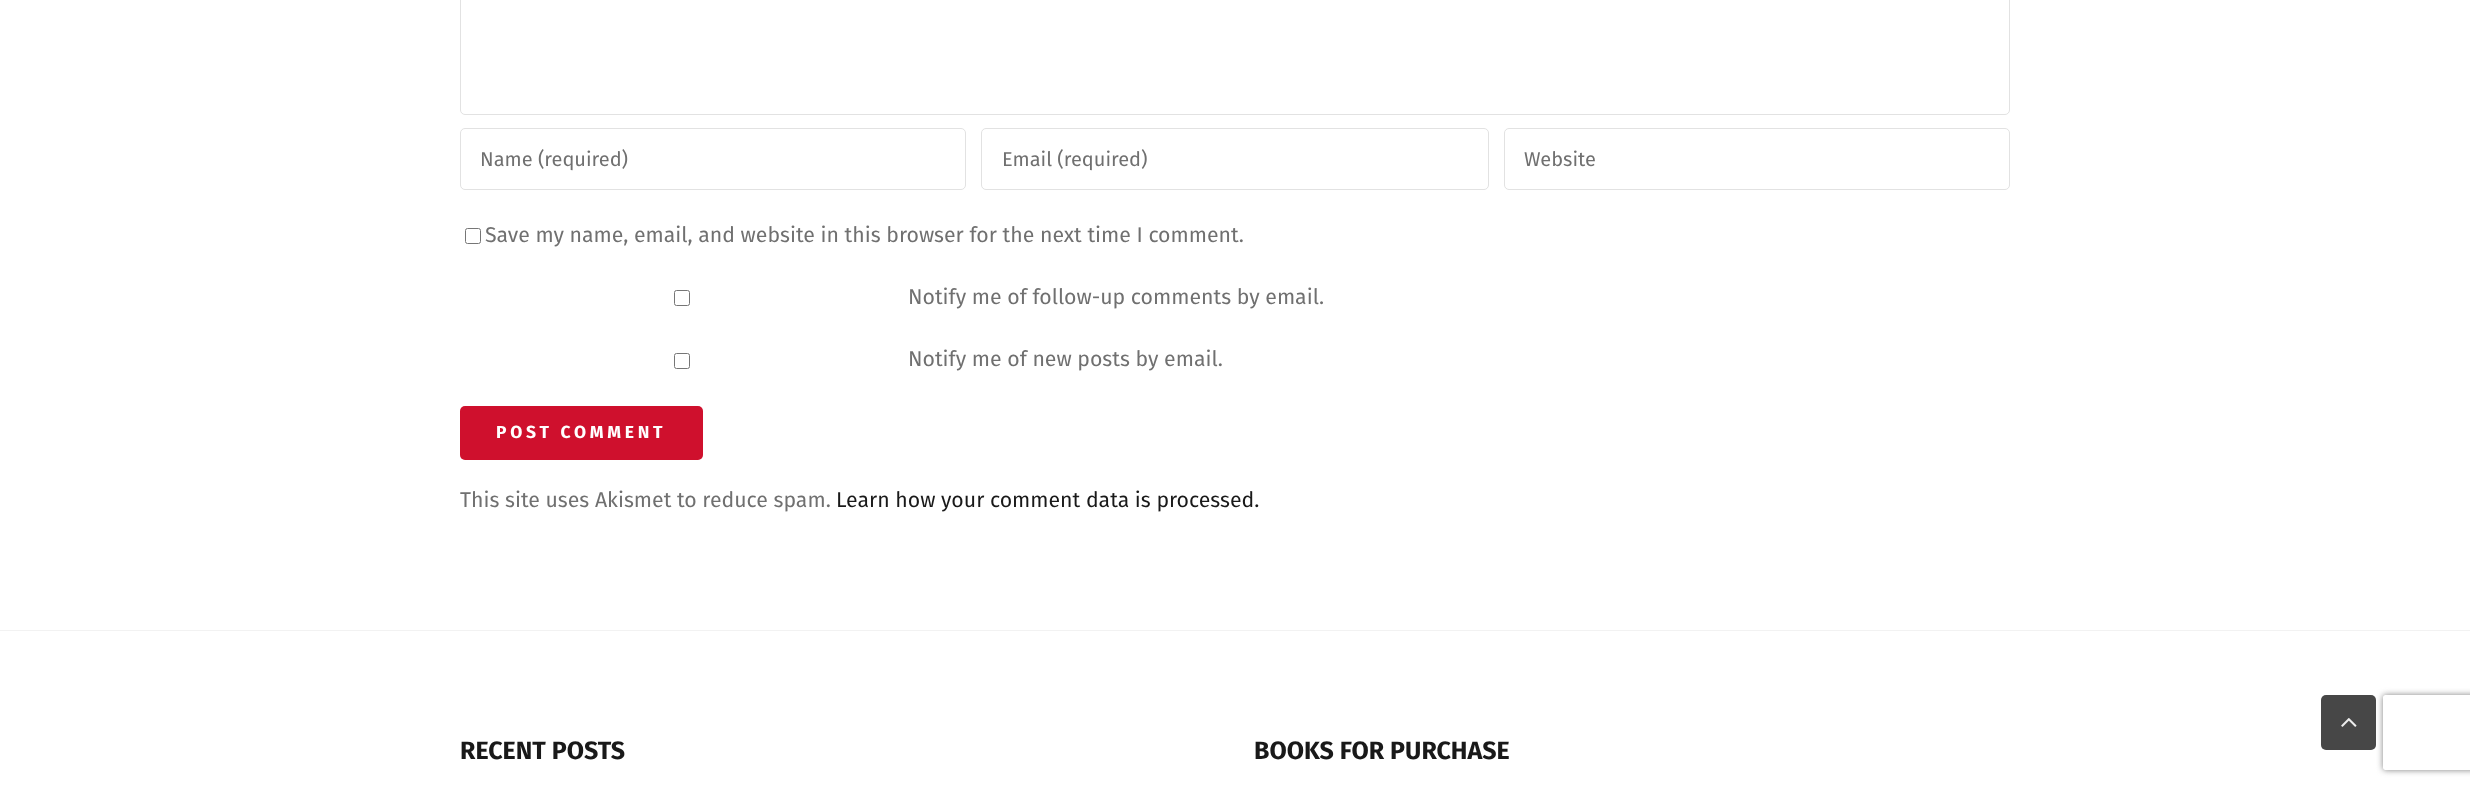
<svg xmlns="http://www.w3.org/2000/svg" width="2470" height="787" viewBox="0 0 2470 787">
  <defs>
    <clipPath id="clip1"><path d="M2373 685H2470V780H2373ZM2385.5 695H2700.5C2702 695 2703 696 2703 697.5V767.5C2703 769 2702 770 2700.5 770H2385.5C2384 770 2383 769 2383 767.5V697.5C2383 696 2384 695 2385.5 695Z" clip-rule="evenodd"/></clipPath>
  </defs>
  <rect width="100%" height="100%" fill="rgb(255,255,255)"/>
  <rect x="460.5" y="-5.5" width="1549" height="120" rx="4.5" fill="none" stroke="rgb(226,226,226)"/>
  <rect x="460.5" y="128.5" width="505" height="61" rx="4.5" fill="none" stroke="rgb(226,226,226)"/>
  <text x="480" y="166" font-family="Fira Sans" font-size="20" fill="rgb(112,112,112)">Name (required)</text>
  <rect x="981.5" y="128.5" width="507" height="61" rx="4.5" fill="none" stroke="rgb(226,226,226)"/>
  <text x="1002" y="166" font-family="Fira Sans" font-size="20" fill="rgb(112,112,112)">Email (required)</text>
  <rect x="1504.5" y="128.5" width="505" height="61" rx="4.5" fill="none" stroke="rgb(226,226,226)"/>
  <text x="1524" y="166" font-family="Fira Sans" font-size="20" fill="rgb(112,112,112)">Website</text>
  <rect x="465.5" y="228.5" width="15" height="15" rx="2" fill="none" stroke="rgb(118,118,118)"/>
  <text x="485" y="242" font-family="Fira Sans" font-size="21.25" fill="rgb(112,112,112)">Save my name, email, and website in this browser for the next time I comment.</text>
  <rect x="674.5" y="290.5" width="15" height="15" rx="2" fill="none" stroke="rgb(118,118,118)"/>
  <text x="908" y="304" font-family="Fira Sans" font-size="21.25" fill="rgb(112,112,112)">Notify me of follow-up comments by email.</text>
  <rect x="674.5" y="353.5" width="15" height="15" rx="2" fill="none" stroke="rgb(118,118,118)"/>
  <text x="908" y="366" font-family="Fira Sans" font-size="21.25" fill="rgb(112,112,112)">Notify me of new posts by email.</text>
  <rect x="460" y="406" width="243" height="54" rx="5" fill="rgb(207,16,45)"/>
  <text x="496" y="438" font-family="Fira Sans" font-size="17.5" font-weight="bold" letter-spacing="3.75" fill="rgb(255,255,255)">POST COMMENT</text>
  <text x="460" y="507" font-family="Fira Sans" font-size="21.25" fill="rgb(112,112,112)">This site uses Akismet to reduce spam.</text>
  <text x="836" y="507" font-family="Fira Sans" font-size="21.25" fill="rgb(25,25,25)">Learn how your comment data is processed.</text>
  <rect x="0" y="630" width="2470" height="1" fill="rgb(242,242,242)"/>
  <g font-family="Fira Sans" font-size="25" font-weight="bold" fill="rgb(25,25,25)">
    <text x="460" y="759">RECENT POSTS</text>
    <text x="1254" y="759">BOOKS FOR PURCHASE</text>
  </g>
  <g clip-path="url(#clip1)">
    <rect x="2383" y="695" width="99" height="75" rx="2.5" fill="rgb(128,128,128)" filter="blur(3px)"/>
  </g>
  <rect x="2321" y="695" width="55" height="55" rx="5" fill="rgb(71,71,71)"/>
  <image x="2341" y="718" width="16" height="9" href="pic1.png"/>
</svg>
